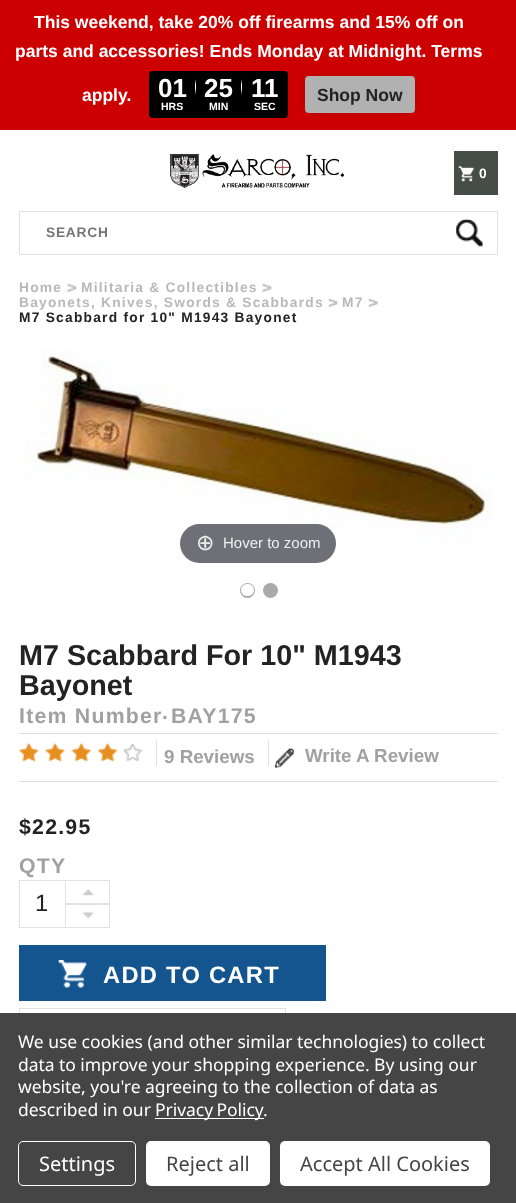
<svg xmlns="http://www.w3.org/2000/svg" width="516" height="1203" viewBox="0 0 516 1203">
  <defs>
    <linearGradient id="g1" gradientUnits="userSpaceOnUse" x1="196" y1="79" x2="196" y2="95"><stop offset="0" stop-color="rgb(0,0,0)"/><stop offset="0.36" stop-color="rgb(255,255,255)"/><stop offset="0.6" stop-color="rgb(255,255,255)"/><stop offset="1" stop-color="rgb(0,0,0)"/></linearGradient>
    <linearGradient id="g2" gradientUnits="userSpaceOnUse" x1="242" y1="79" x2="242" y2="95"><stop offset="0" stop-color="rgb(0,0,0)"/><stop offset="0.36" stop-color="rgb(255,255,255)"/><stop offset="0.6" stop-color="rgb(255,255,255)"/><stop offset="1" stop-color="rgb(0,0,0)"/></linearGradient>
  </defs>
  <rect width="100%" height="100%" fill="rgb(255,255,255)"/>
  <rect x="0" y="0" width="516" height="130" fill="rgb(204,0,0)"/>
  <g font-family="Liberation Sans" font-size="17.5" font-weight="bold" fill="rgb(255,255,255)">
    <text x="34" y="28">This weekend, take 20% off firearms and 15% off on</text>
    <text x="15" y="57">parts and accessories! Ends Monday at Midnight. Terms</text>
    <text x="82" y="101">apply.</text>
  </g>
  <rect x="149" y="71" width="139" height="47" rx="4" fill="rgb(0,0,0)"/>
  <text x="158" y="97" font-family="Liberation Sans" font-size="26" font-weight="bold" fill="rgb(255,255,255)">01</text>
  <rect x="195" y="79" width="1" height="16" fill="url(#g1)"/>
  <text x="161" y="110" font-family="Liberation Sans" font-size="10.5" font-weight="bold" fill="rgb(255,255,255)">HRS</text>
  <text x="204" y="97" font-family="Liberation Sans" font-size="26" font-weight="bold" fill="rgb(255,255,255)">25</text>
  <rect x="241" y="79" width="1" height="16" fill="url(#g2)"/>
  <text x="209" y="110" font-family="Liberation Sans" font-size="10.5" font-weight="bold" fill="rgb(255,255,255)">MIN</text>
  <text x="251" y="97" font-family="Liberation Sans" font-size="26" font-weight="bold" fill="rgb(255,255,255)">11</text>
  <text x="254" y="110" font-family="Liberation Sans" font-size="10.5" font-weight="bold" fill="rgb(255,255,255)">SEC</text>
  <rect x="305" y="76" width="110" height="37" rx="4" fill="rgba(0,0,0,0.1)" filter="blur(3px)"/>
  <rect x="305" y="76" width="110" height="37" rx="4" fill="rgb(177,177,177)"/>
  <text x="317" y="101" font-family="Liberation Sans" font-size="17.5" font-weight="bold" fill="rgb(36,35,35)">Shop Now</text>
  <rect x="454" y="151" width="44" height="44" fill="rgb(70,76,70)"/>
  <image x="458" y="166" width="16" height="16" href="pic1.png"/>
  <text x="479" y="178" font-family="Liberation Sans" font-size="13.75" font-weight="bold" letter-spacing="1" fill="rgb(255,255,255)">0</text>
  <image x="170" y="153" width="175" height="37" href="pic2.png"/>
  <rect x="19.5" y="211.5" width="478" height="43" fill="none" stroke="rgb(227,225,225)"/>
  <text x="46" y="237" font-family="Liberation Sans" font-size="13.75" font-weight="bold" letter-spacing="0.75" fill="rgb(119,118,118)">SEARCH</text>
  <image x="456" y="218" width="27" height="29" href="pic3.png"/>
  <text x="19" y="292" font-family="Liberation Sans" font-size="13.75" font-weight="bold" letter-spacing="1.25" fill="rgb(185,185,186)">Home</text>
  <image x="67" y="283" width="10" height="10" href="pic4.png"/>
  <text x="81" y="292" font-family="Liberation Sans" font-size="13.75" font-weight="bold" letter-spacing="1.25" fill="rgb(185,185,186)">Militaria &amp; Collectibles</text>
  <image x="262" y="283" width="10" height="10" href="pic4.png"/>
  <text x="19" y="307" font-family="Liberation Sans" font-size="13.75" font-weight="bold" letter-spacing="1.25" fill="rgb(185,185,186)">Bayonets, Knives, Swords &amp; Scabbards</text>
  <image x="328" y="298" width="10" height="10" href="pic5.png"/>
  <text x="342" y="307" font-family="Liberation Sans" font-size="13.75" font-weight="bold" letter-spacing="1.25" fill="rgb(185,185,186)">M7</text>
  <image x="368" y="298" width="10" height="10" href="pic6.png"/>
  <text x="19" y="322" font-family="Liberation Sans" font-size="13.75" font-weight="bold" letter-spacing="1.25" fill="rgb(36,35,35)">M7 Scabbard for 10" M1943 Bayonet</text>
  <image x="25" y="348" width="468" height="196" href="pic7.png"/>
  <rect x="180" y="524" width="156" height="39" rx="19.5" fill="rgb(111,112,119)"/>
  <text x="196" y="550" font-family="DejaVu Sans" font-size="22" fill="rgb(238,238,238)">⊕</text>
  <text x="223" y="548" font-family="Liberation Sans" font-size="15" fill="rgb(238,238,238)">Hover to zoom</text>
  <circle cx="247.5" cy="590.5" r="7.5" fill="rgb(170,170,170)"/>
  <rect x="241" y="584" width="13" height="12" rx="6" fill="rgb(255,255,255)"/>
  <circle cx="270.5" cy="590.5" r="7.5" fill="rgb(170,170,170)"/>
  <g font-family="Liberation Sans" font-size="28.75" font-weight="bold" fill="rgb(36,35,35)">
    <text>
      <tspan x="19" y="665">M7 Scabbard For 10" M1943</tspan>
      <tspan x="19" y="695">Bayonet</tspan>
    </text>
  </g>
  <g font-family="Liberation Sans" font-size="21.25" font-weight="bold" letter-spacing="1.25" fill="rgb(161,161,162)">
    <text x="19" y="723">Item Number</text>
    <text x="162" y="719">.</text>
    <text x="171" y="723">BAY175</text>
  </g>
  <rect x="19" y="733" width="479" height="1" fill="rgb(225,225,225)"/>
  <rect x="19" y="781" width="479" height="1" fill="rgb(225,225,225)"/>
  <image x="18" y="743" width="21" height="19" href="pic8.png"/>
  <image x="45" y="743" width="20" height="19" href="pic9.png"/>
  <image x="71" y="743" width="21" height="19" href="pic10.png"/>
  <image x="97" y="743" width="21" height="19" href="pic11.png"/>
  <image x="123" y="743" width="20" height="19" href="pic12.png"/>
  <rect x="156" y="740" width="1" height="26" fill="rgb(225,225,225)"/>
  <text x="164" y="763" font-family="Liberation Sans" font-size="18.75" font-weight="bold" fill="rgb(161,161,162)">9 Reviews</text>
  <rect x="268" y="740" width="1" height="26" fill="rgb(225,225,225)"/>
  <image x="275" y="748" width="19" height="20" href="pic13.png"/>
  <text x="305" y="762" font-family="Liberation Sans" font-size="18.75" font-weight="bold" fill="rgb(161,161,162)">Write A Review</text>
  <text x="19" y="834" font-family="Liberation Sans" font-size="21.25" font-weight="bold" letter-spacing="1.25" fill="rgb(36,35,35)">$22.95</text>
  <text x="19" y="873" font-family="Liberation Sans" font-size="21.25" font-weight="bold" letter-spacing="1.25" fill="rgb(161,161,162)">QTY</text>
  <rect x="19.5" y="880.5" width="46" height="47" fill="none" stroke="rgb(225,225,225)"/>
  <text x="35" y="911" font-family="Liberation Sans" font-size="23.75" letter-spacing="1.25" fill="rgb(36,35,35)">1</text>
  <image x="82" y="889" width="12" height="7" href="pic14.png"/>
  <image x="82" y="911" width="12" height="8" href="pic15.png"/>
  <rect x="65.5" y="903.5" width="44" height="24" fill="none" stroke="rgb(225,225,225)"/>
  <rect x="65.5" y="880.5" width="44" height="24" fill="none" stroke="rgb(225,225,225)"/>
  <rect x="19" y="945" width="307" height="56" fill="rgb(20,84,143)"/>
  <image x="58" y="960" width="29" height="28" href="pic16.png"/>
  <text x="103" y="983" font-family="Liberation Sans" font-size="23.75" font-weight="bold" letter-spacing="1.25" fill="rgb(255,255,255)">ADD TO CART</text>
  <rect x="19.5" y="1008.5" width="266" height="55" fill="none" stroke="rgb(225,225,225)"/>
  <rect x="0" y="1013" width="516" height="190" fill="rgb(69,69,69)"/>
  <g font-family="Noto Sans" font-size="17.5" letter-spacing="-0.05" fill="rgb(255,255,255)">
    <text>
      <tspan x="18" y="1048">We use cookies (and other similar technologies) to collect</tspan>
      <tspan x="18" y="1071">data to improve your shopping experience. By using our</tspan>
      <tspan x="18" y="1093">website, you're agreeing to the collection of data as</tspan>
      <tspan x="18" y="1116">described in our</tspan>
    </text>
  </g>
  <rect x="155" y="1118" width="109" height="1" fill="rgb(255,255,255)"/>
  <g font-family="Noto Sans" font-size="17.5" letter-spacing="-0.05" fill="rgb(255,255,255)">
    <text x="155" y="1116" word-spacing="-1">Privacy Policy</text>
    <text x="263" y="1116">.</text>
  </g>
  <rect x="18.5" y="1141.5" width="117" height="44" rx="4.5" fill="none" stroke="rgb(255,255,255)"/>
  <text x="39" y="1171" font-family="Noto Sans" font-size="20" fill="rgb(255,255,255)">Settings</text>
  <rect x="146" y="1141" width="124" height="45" rx="5" fill="rgb(255,255,255)"/>
  <text x="166" y="1171" font-family="Noto Sans" font-size="20" fill="rgb(69,69,69)">Reject all</text>
  <rect x="280" y="1141" width="210" height="45" rx="5" fill="rgb(255,255,255)"/>
  <text x="300" y="1171" font-family="Noto Sans" font-size="20" fill="rgb(69,69,69)">Accept All Cookies</text>
</svg>
